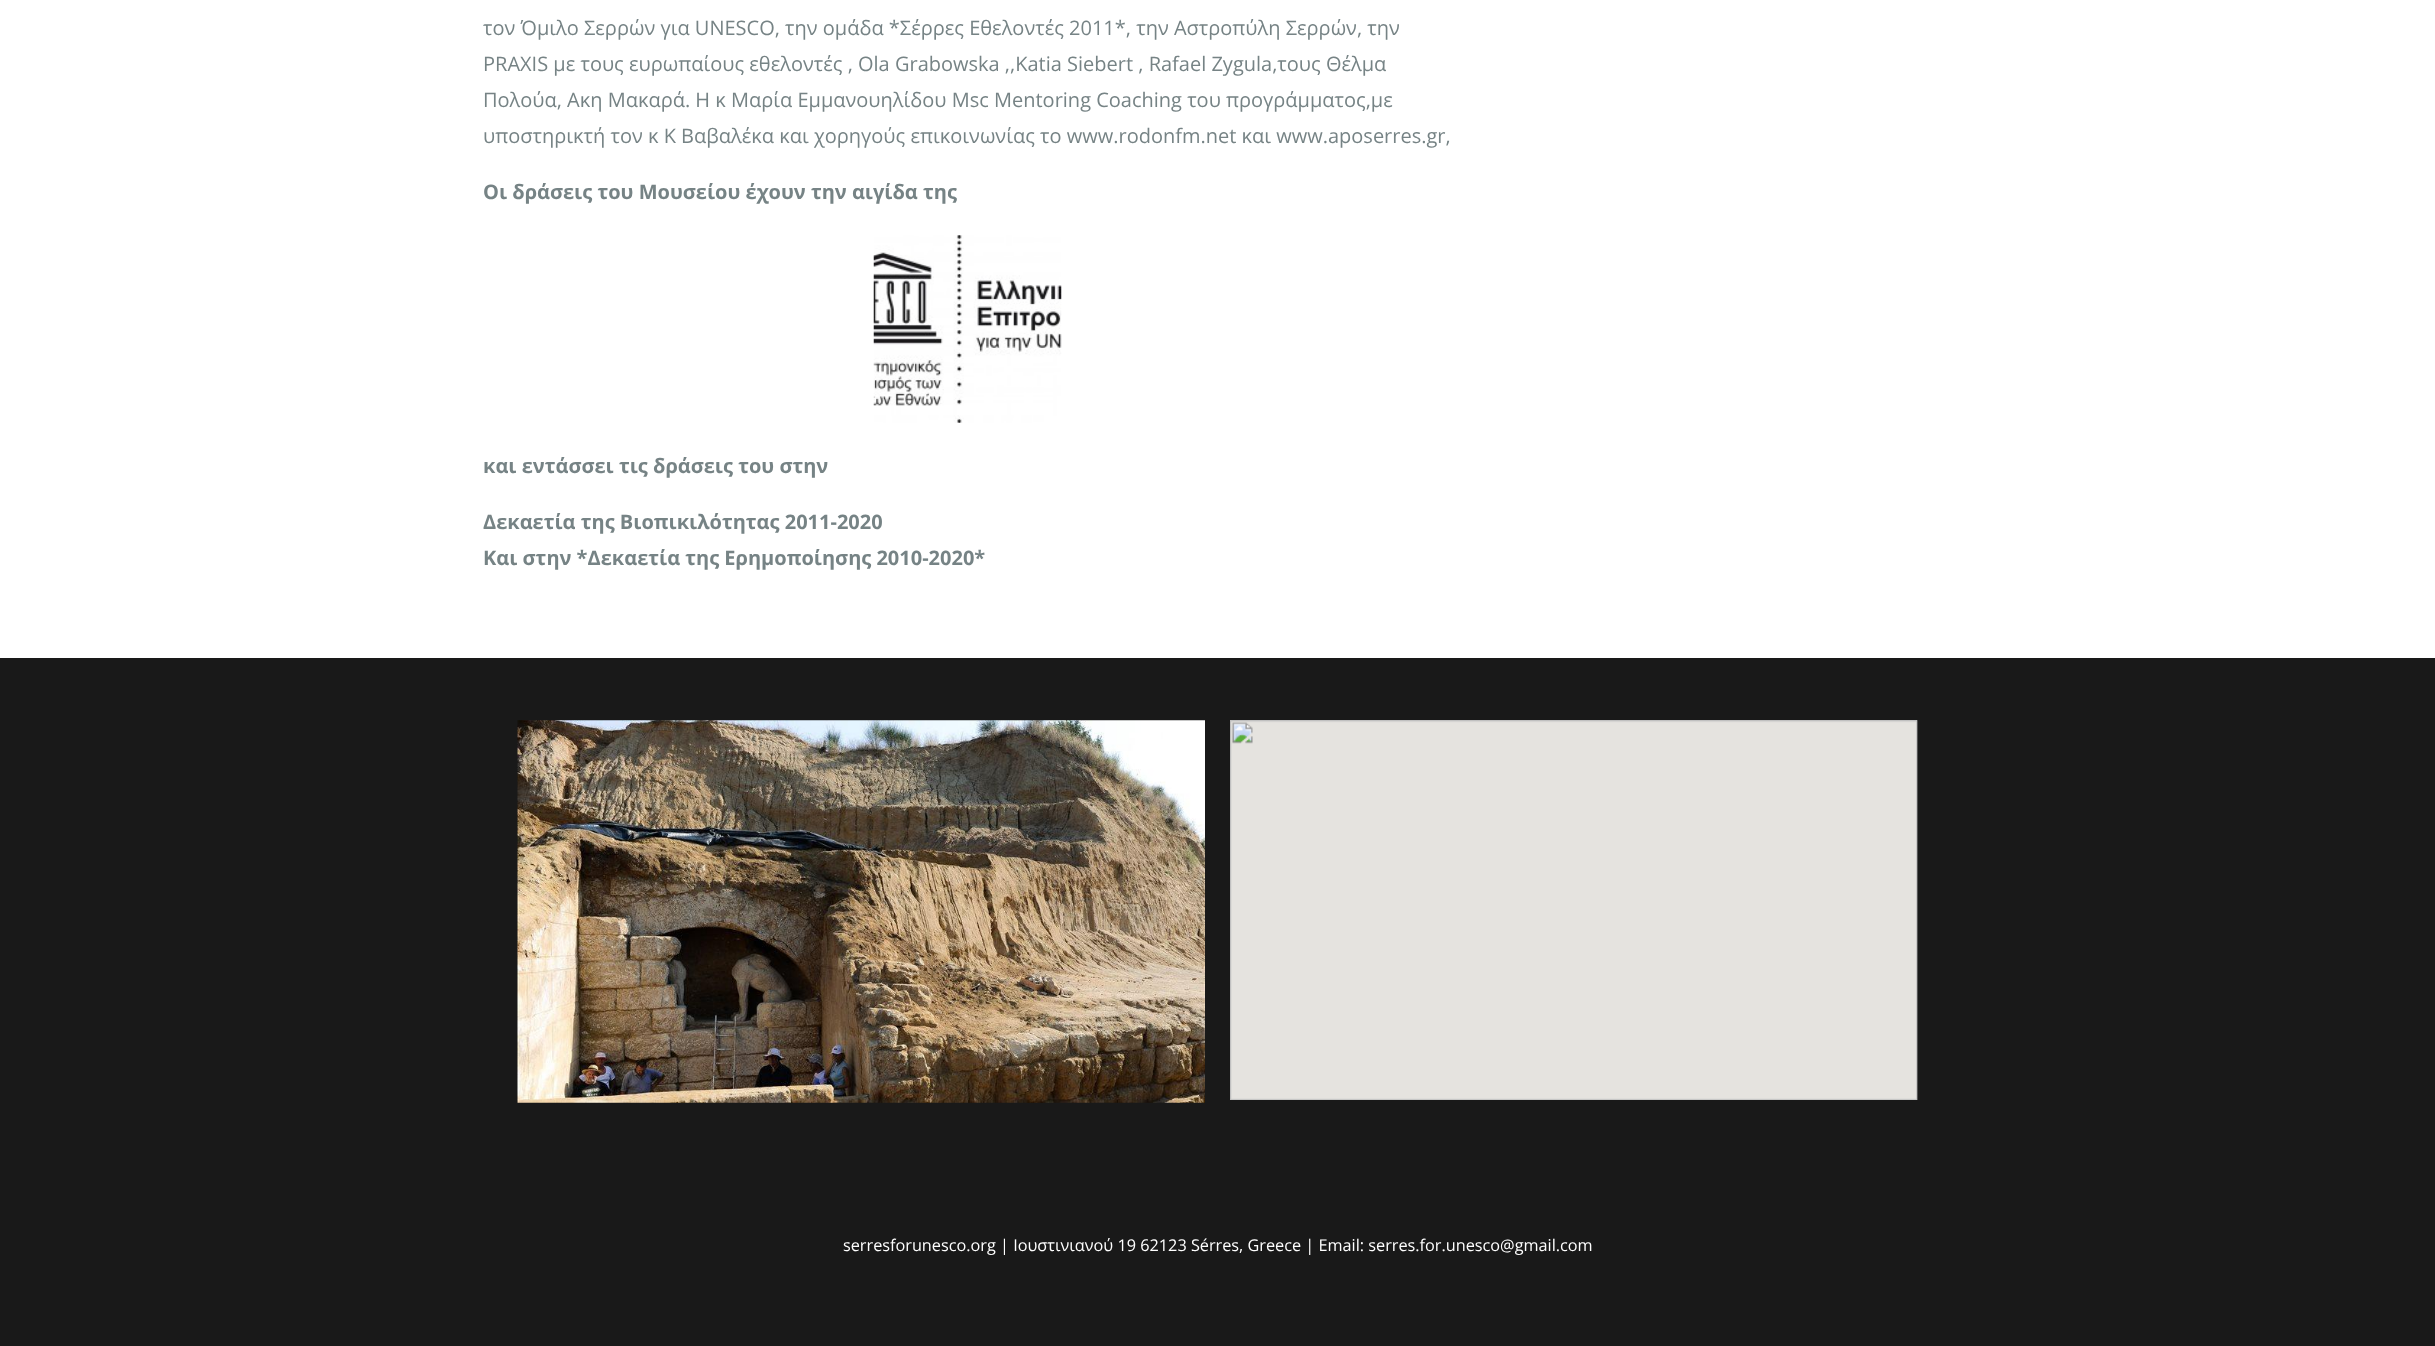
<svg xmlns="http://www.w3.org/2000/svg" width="2435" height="1346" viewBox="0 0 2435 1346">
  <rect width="100%" height="100%" fill="rgb(255,255,255)"/>
  <g font-family="Open Sans" font-size="20" fill="rgb(118,131,133)">
    <text>
      <tspan x="483" y="35">τον Όμιλο Σερρών για UNESCO, την ομάδα *Σέρρες Εθελοντές 2011*, την Αστροπύλη Σερρών, την</tspan>
      <tspan x="483" y="71">PRAXIS με τους ευρωπαίους εθελοντές , Ola Grabowska ,,Katia Siebert , Rafael Zygula,τους Θέλμα</tspan>
      <tspan x="483" y="107">Πολούα, Ακη Μακαρά. Η κ Μαρία Εμμανουηλίδου Msc Mentoring Coaching του προγράμματος,με</tspan>
      <tspan x="483" y="143">υποστηρικτή τον κ Κ Βαβαλέκα και χορηγούς επικοινωνίας το www.rodonfm.net και www.aposerres.gr,</tspan>
    </text>
  </g>
  <text x="483" y="199" font-family="Open Sans" font-size="20" font-weight="bold" fill="rgb(118,131,133)">Οι δράσεις του Μουσείου έχουν την αιγίδα της</text>
  <image x="873" y="235" width="189" height="188" href="pic1.png"/>
  <g font-family="Open Sans" font-size="20" font-weight="bold" fill="rgb(118,131,133)">
    <text x="483" y="473">και εντάσσει τις δράσεις του στην</text>
    <text>
      <tspan x="483" y="529">Δεκαετία της Βιοπικιλότητας 2011-2020</tspan>
      <tspan x="483" y="565">Και στην *Δεκαετία της Ερημοποίησης 2010-2020*</tspan>
    </text>
  </g>
  <rect x="0" y="658" width="2435" height="688" fill="rgb(25,25,25)"/>
  <image x="517" y="720" width="688" height="383" href="pic2.png"/>
  <image x="1230" y="720" width="688" height="380" href="pic3.png"/>
  <text x="843" y="1251" font-family="Open Sans" font-size="16.25" fill="rgb(255,255,255)">serresforunesco.org | Ιουστινιανού 19 62123 Sérres, Greece | Email: serres.for.unesco@gmail.com</text>
</svg>
